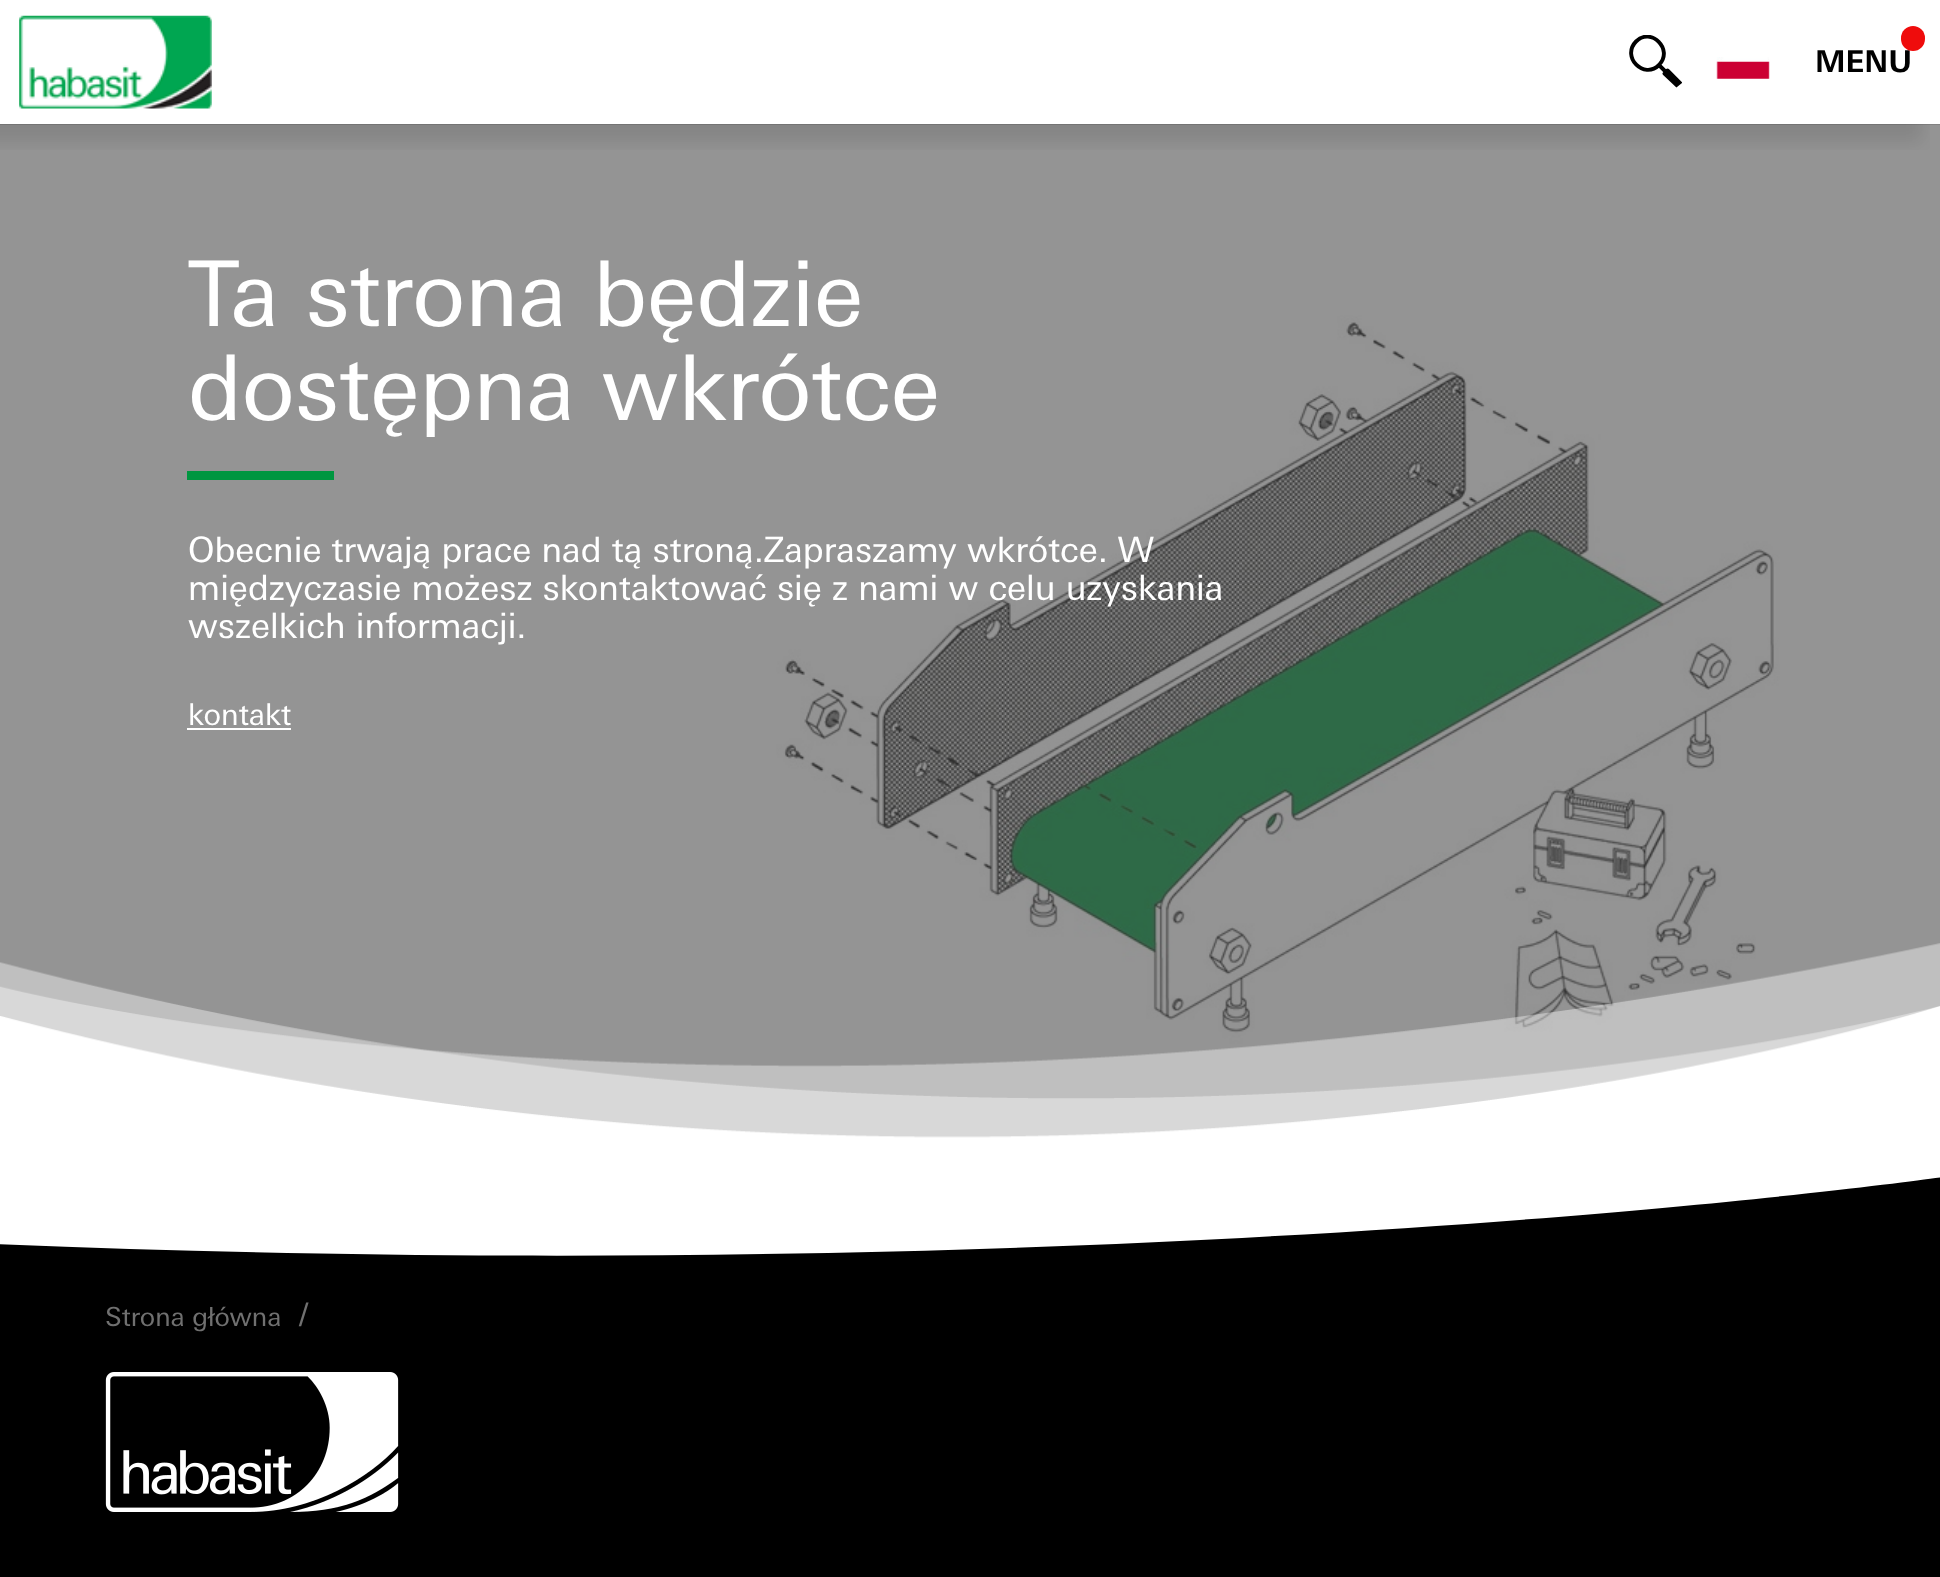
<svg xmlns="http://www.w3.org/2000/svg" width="1940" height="1577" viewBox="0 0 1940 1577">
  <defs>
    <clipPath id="clip1"><rect x="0" y="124" width="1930" height="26"/></clipPath>
    <clipPath id="clip2"><rect x="1629" y="35" width="53" height="53"/></clipPath>
  </defs>
  <rect width="100%" height="100%" fill="rgb(255,255,255)"/>
  <rect x="0" y="124" width="1940" height="1" fill="rgb(107,107,107)"/>
  <image x="0" y="124" width="1940" height="1014" href="pic3.png"/>
  <g clip-path="url(#clip1)">
    <rect x="-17" y="18" width="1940" height="124" fill="rgba(0,0,0,0.1)" filter="blur(9px)"/>
  </g>
  <image x="19" y="15" width="193" height="94" href="pic1.png"/>
  <g clip-path="url(#clip2)">
    <path d="M1659 65C1674 49.5 1651 26.5 1636 41.5C1621 57 1644 80 1659 65L1677 83M1667.5 70.5L1679.5 82.5L1676.5 85L1664.5 73.5" fill="none" stroke="rgb(0,0,0)" stroke-width="3.9" stroke-linecap="round"/>
  </g>
  <image x="1716" y="57" width="54" height="22" href="pic2.png"/>
  <text x="1815" y="72" font-family="'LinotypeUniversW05'" font-size="30" font-weight="bold" fill="rgb(0,0,0)">MENU</text>
  <rect x="1901" y="26" width="24" height="25" rx="12" fill="rgb(239,12,12)"/>
  <image x="0" y="943" width="1940" height="231" href="pic4.png"/>
  <g font-family="'LinotypeUniversW05'" font-size="90.5" fill="rgb(255,255,255)">
    <text>
      <tspan x="188" y="326">Ta strona będzie</tspan>
      <tspan x="188" y="420">dostępna wkrótce</tspan>
    </text>
  </g>
  <rect x="187" y="471" width="147" height="9" fill="rgb(0,150,64)"/>
  <g font-family="'LinotypeUniversW05'" font-size="35" fill="rgb(255,255,255)">
    <text>
      <tspan x="188" y="562">Obecnie trwają prace nad tą stroną.Zapraszamy wkrótce. W</tspan>
      <tspan x="188" y="600">międzyczasie możesz skontaktować się z nami w celu uzyskania</tspan>
      <tspan x="188" y="638">wszelkich informacji.</tspan>
    </text>
  </g>
  <text x="188" y="725" font-family="'LinotypeUniversW05'" font-size="30" fill="rgb(255,255,255)">kontakt</text>
  <rect x="187" y="728" width="104" height="2" fill="rgb(255,255,255)"/>
  <path d="M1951 1291V1176C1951 1176 1152 1292-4 1244V1291Z" fill="rgb(0,0,0)"/>
  <rect x="0" y="1291" width="1940" height="286" fill="rgb(0,0,0)"/>
  <text x="105" y="1326" font-family="'LinotypeUniversW05'" font-size="26.25" fill="rgb(112,112,112)">Strona główna</text>
  <text x="299" y="1326" font-family="'LinotypeUniversW05'" font-size="32" fill="rgb(112,112,112)">/</text>
  <image x="105" y="1372" width="294" height="140" href="pic5.png"/>
</svg>
